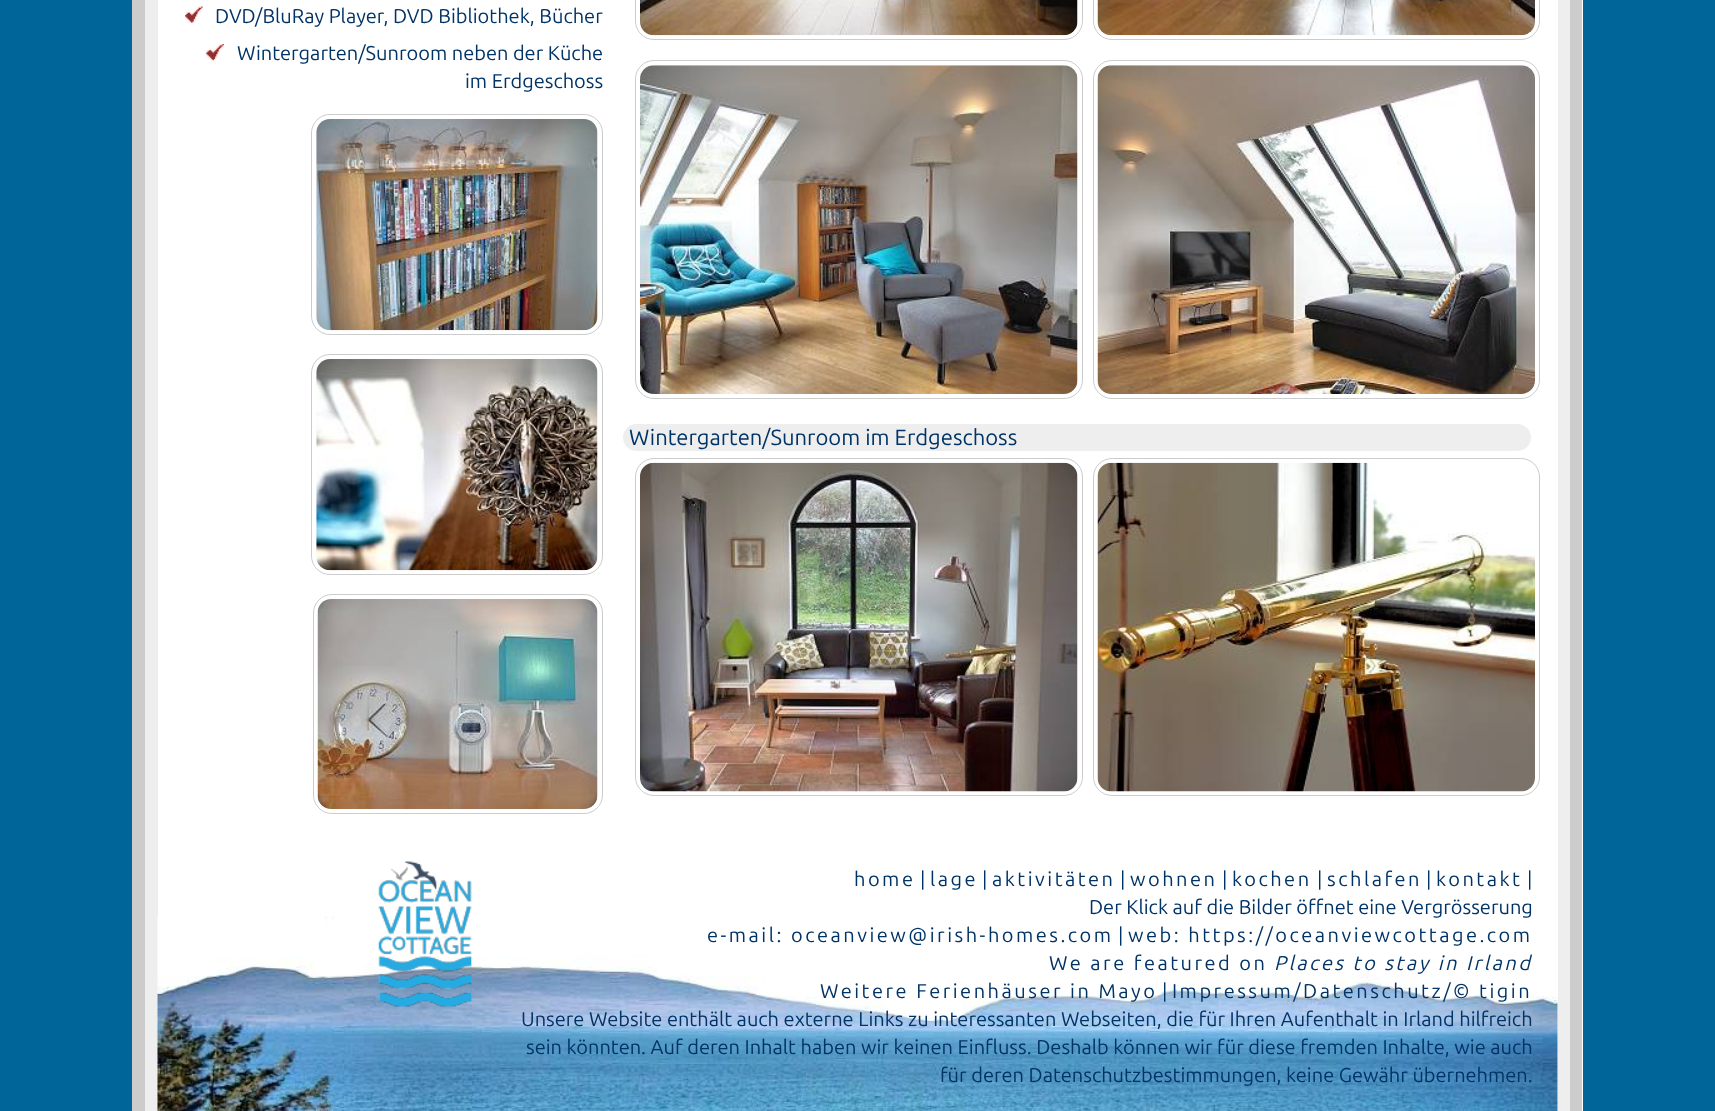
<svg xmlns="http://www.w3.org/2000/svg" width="1715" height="1111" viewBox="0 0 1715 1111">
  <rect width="100%" height="100%" fill="rgb(0,102,153)"/>
  <rect x="158" y="0" width="1425" height="1111" fill="rgb(255,255,255)"/>
  <path d="M158-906H1558C1571-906 1582-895 1582-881V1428C1582 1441 1571 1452 1558 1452H158C144 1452 132 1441 132 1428V-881C132-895 144-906 158-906ZM158-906H1558C1564-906 1570-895 1570-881V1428C1570 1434 1564 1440 1558 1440H158C151 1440 145 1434 145 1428V-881C145-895 151-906 158-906Z" fill="rgb(204,204,204)" fill-rule="evenodd"/>
  <path d="M164-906C157-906 152-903 149-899C146-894 145-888 145-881V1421C145 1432 153 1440 164 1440H1551C1562 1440 1570 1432 1570 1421V-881C1570-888 1569-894 1566-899C1563-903 1558-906 1551-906C1555-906 1558-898 1558-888V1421C1558 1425 1555 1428 1551 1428H164C160 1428 158 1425 158 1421V-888C158-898 160-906 164-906Z" fill="rgb(238,238,238)"/>
  <image x="185" y="6" width="18" height="17" href="pic1.png"/>
  <text x="215" y="23" font-family="Ubuntu" font-size="20" fill="rgb(0,51,102)">DVD/BluRay Player, DVD Bibliothek, Bücher</text>
  <image x="206" y="44" width="18" height="17" href="pic2.png"/>
  <g font-family="Ubuntu" font-size="20" fill="rgb(0,51,102)">
    <text x="237" y="60">Wintergarten/Sunroom neben der Küche</text>
    <text x="465" y="88">im Erdgeschoss</text>
  </g>
  <rect x="311.5" y="114.5" width="291" height="220" rx="18.5" fill="none" stroke="rgb(204,204,204)"/>
  <image x="316" y="119" width="282" height="212" href="pic3.png"/>
  <rect x="311.5" y="354.5" width="291" height="220" rx="18.5" fill="none" stroke="rgb(204,204,204)"/>
  <image x="316" y="359" width="282" height="212" href="pic4.png"/>
  <rect x="313.5" y="594.5" width="289" height="219" rx="18.5" fill="none" stroke="rgb(204,204,204)"/>
  <image x="317" y="599" width="281" height="210" href="pic5.png"/>
  <rect x="635.5" y="-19.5" width="447" height="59" rx="18.5" fill="none" stroke="rgb(204,204,204)"/>
  <image x="640" y="0" width="438" height="36" href="pic6.png"/>
  <rect x="635.5" y="60.5" width="447" height="338" rx="18.5" fill="none" stroke="rgb(204,204,204)"/>
  <image x="640" y="65" width="438" height="329" href="pic7.png"/>
  <rect x="1093.5" y="-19.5" width="446" height="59" rx="18.5" fill="none" stroke="rgb(204,204,204)"/>
  <image x="1097" y="0" width="438" height="36" href="pic8.png"/>
  <rect x="1093.5" y="60.5" width="446" height="338" rx="18.5" fill="none" stroke="rgb(204,204,204)"/>
  <image x="1097" y="65" width="438" height="329" href="pic9.png"/>
  <rect x="623" y="424" width="908" height="27" rx="13.5" fill="rgb(238,238,238)"/>
  <text x="629" y="445" font-family="Ubuntu" font-size="22" fill="rgb(0,51,102)">Wintergarten/Sunroom im Erdgeschoss</text>
  <rect x="635.5" y="458.5" width="447" height="337" rx="18.5" fill="none" stroke="rgb(204,204,204)"/>
  <image x="640" y="462" width="438" height="330" href="pic10.png"/>
  <rect x="1093.5" y="458.5" width="446" height="337" rx="18.5" fill="none" stroke="rgb(204,204,204)"/>
  <image x="1097" y="462" width="438" height="330" href="pic11.png"/>
  <image x="157" y="916" width="1401" height="195" href="pic12.png"/>
  <image x="378" y="861" width="94" height="146" href="pic13.png"/>
  <text x="854" y="886" font-family="Ubuntu" font-size="20" letter-spacing="2.5" fill="rgb(0,51,102)">home</text>
  <text x="920" y="886" font-family="Ubuntu" font-size="20" fill="rgb(0,51,102)">|</text>
  <text x="930" y="886" font-family="Ubuntu" font-size="20" letter-spacing="2.5" fill="rgb(0,51,102)">lage</text>
  <text x="982" y="886" font-family="Ubuntu" font-size="20" fill="rgb(0,51,102)">|</text>
  <text x="992" y="886" font-family="Ubuntu" font-size="20" letter-spacing="2.5" fill="rgb(0,51,102)">aktivitäten</text>
  <text x="1120" y="886" font-family="Ubuntu" font-size="20" fill="rgb(0,51,102)">|</text>
  <text x="1130" y="886" font-family="Ubuntu" font-size="20" letter-spacing="2.5" fill="rgb(0,51,102)">wohnen</text>
  <text x="1222" y="886" font-family="Ubuntu" font-size="20" fill="rgb(0,51,102)">|</text>
  <text x="1232" y="886" font-family="Ubuntu" font-size="20" letter-spacing="2.5" fill="rgb(0,51,102)">kochen</text>
  <text x="1317" y="886" font-family="Ubuntu" font-size="20" fill="rgb(0,51,102)">|</text>
  <text x="1327" y="886" font-family="Ubuntu" font-size="20" letter-spacing="2.5" fill="rgb(0,51,102)">schlafen</text>
  <text x="1426" y="886" font-family="Ubuntu" font-size="20" fill="rgb(0,51,102)">|</text>
  <text x="1436" y="886" font-family="Ubuntu" font-size="20" letter-spacing="2.5" fill="rgb(0,51,102)">kontakt</text>
  <g font-family="Ubuntu" font-size="20" fill="rgb(0,51,102)">
    <text x="1527" y="886">|</text>
    <text x="1089" y="914">Der Klick auf die Bilder öffnet eine Vergrösserung</text>
  </g>
  <text x="707" y="942" font-family="Ubuntu" font-size="20" letter-spacing="2.5" fill="rgb(0,51,102)">e-mail: oceanview@irish-homes.com</text>
  <text x="1118" y="942" font-family="Ubuntu" font-size="20" fill="rgb(0,51,102)">|</text>
  <g font-family="Ubuntu" font-size="20" letter-spacing="2.5" fill="rgb(0,51,102)">
    <text x="1128" y="942">web: https://oceanviewcottage.com</text>
    <text x="1049" y="970">We are featured on</text>
  </g>
  <text x="1274" y="970" font-family="Ubuntu" font-size="20" font-style="italic" letter-spacing="2.5" fill="rgb(0,51,102)">Places to stay in Irland</text>
  <text x="820" y="998" font-family="Ubuntu" font-size="20" letter-spacing="2.5" fill="rgb(0,51,102)">Weitere Ferienhäuser in Mayo</text>
  <text x="1162" y="998" font-family="Ubuntu" font-size="20" fill="rgb(0,51,102)">|</text>
  <text x="1172" y="998" font-family="Ubuntu" font-size="20" letter-spacing="2.5" fill="rgb(0,51,102)">Impressum/Datenschutz/© tigin</text>
  <g font-family="Ubuntu" font-size="20" fill="rgb(0,51,102)">
    <text x="521" y="1026">Unsere Website enthält auch externe Links zu interessanten Webseiten, die für Ihren Aufenthalt in Irland hilfreich</text>
    <text x="526" y="1054">sein könnten. Auf deren Inhalt haben wir keinen Einfluss. Deshalb können wir für diese fremden Inhalte, wie auch</text>
    <text x="940" y="1082">für deren Datenschutzbestimmungen, keine Gewähr übernehmen.</text>
  </g>
</svg>
